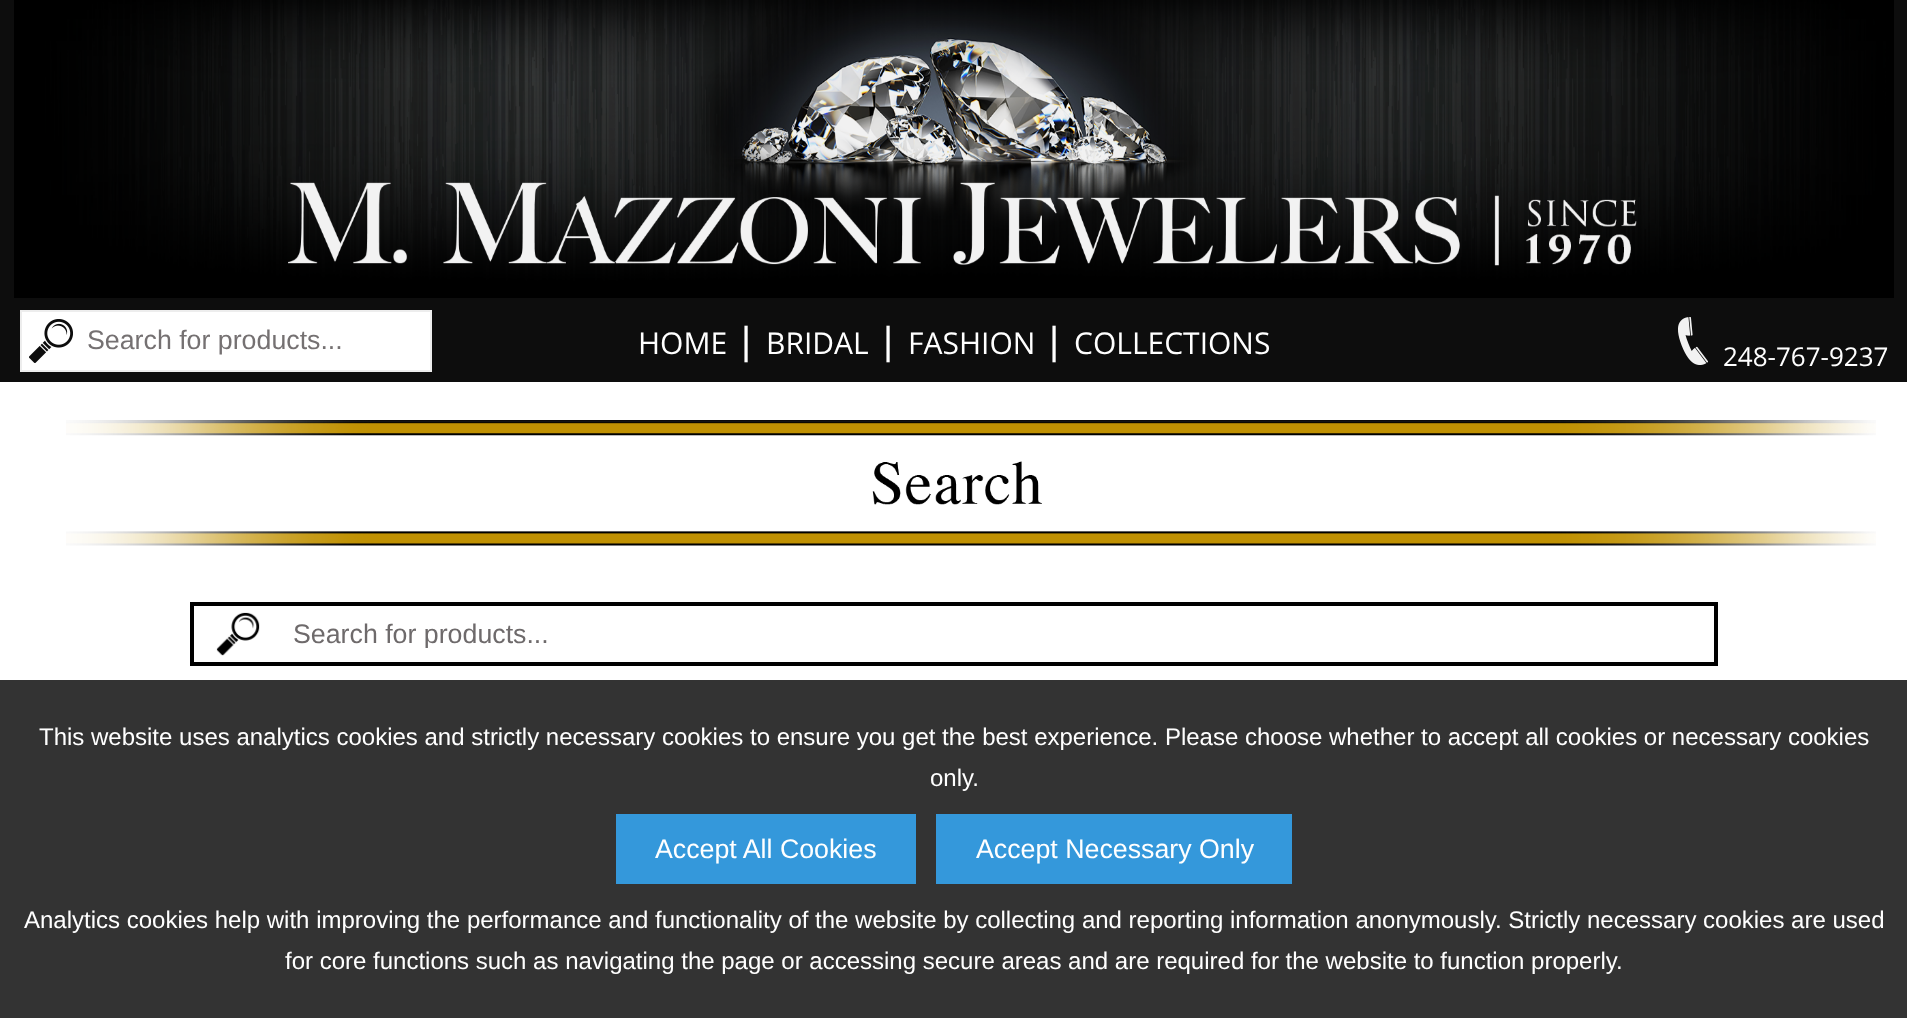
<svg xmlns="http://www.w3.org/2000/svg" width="1907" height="1018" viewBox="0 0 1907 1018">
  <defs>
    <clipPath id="clip1"><rect x="292" y="618" width="1422" height="30"/></clipPath>
  </defs>
  <rect width="100%" height="100%" fill="rgb(255,255,255)"/>
  <rect x="0" y="0" width="1907" height="382" fill="rgb(13,13,13)"/>
  <image x="14" y="0" width="1880" height="298" href="pic1.png"/>
  <rect x="21" y="311" width="410" height="60" fill="rgb(255,255,255)" stroke="rgb(237,237,237)" stroke-width="2"/>
  <image x="29" y="319" width="44" height="44" href="pic2.png"/>
  <text x="87" y="349" font-family="Liberation Sans" font-size="26.75" fill="rgb(117,113,114)">Search for products...</text>
  <text x="638" y="354" font-family="Open Sans" font-size="30" fill="rgb(255,255,255)">HOME</text>
  <text x="741" y="354" font-family="Liberation Sans" font-size="39" fill="rgb(255,255,255)">|</text>
  <text x="766" y="354" font-family="Open Sans" font-size="30" fill="rgb(255,255,255)">BRIDAL</text>
  <text x="883" y="354" font-family="Liberation Sans" font-size="39" fill="rgb(255,255,255)">|</text>
  <text x="908" y="354" font-family="Open Sans" font-size="30" fill="rgb(255,255,255)">FASHION</text>
  <text x="1049" y="354" font-family="Liberation Sans" font-size="39" fill="rgb(255,255,255)">|</text>
  <text x="1074" y="354" font-family="Open Sans" font-size="30" fill="rgb(255,255,255)">COLLECTIONS</text>
  <image x="1678" y="317" width="30" height="48" href="pic3.png"/>
  <text x="1723" y="366" font-family="Open Sans" font-size="26" fill="rgb(255,255,255)">248-767-9237</text>
  <image x="66" y="420" width="1810" height="126" href="pic4.png"/>
  <rect x="192" y="604" width="1524" height="60" fill="none" stroke="rgb(0,0,0)" stroke-width="4"/>
  <image x="216" y="612" width="44" height="44" href="pic5.png"/>
  <g clip-path="url(#clip1)">
    <text x="293" y="643" font-family="Liberation Sans" font-size="26.75" fill="rgb(110,106,107)">Search for products...</text>
  </g>
  <rect x="0" y="680" width="1907" height="338" fill="rgb(51,51,51)"/>
  <g font-family="Liberation Sans" font-size="24" fill="rgb(255,255,255)">
    <text x="39" y="745">This website uses analytics cookies and strictly necessary cookies to ensure you get the best experience. Please choose whether to accept all cookies or necessary cookies</text>
    <text x="930" y="786">only.</text>
  </g>
  <rect x="616" y="814" width="300" height="70" fill="rgb(52,152,219)"/>
  <text x="655" y="858" font-family="Liberation Sans" font-size="26.75" fill="rgb(255,255,255)">Accept All Cookies</text>
  <rect x="936" y="814" width="356" height="70" fill="rgb(52,152,219)"/>
  <text x="976" y="858" font-family="Liberation Sans" font-size="26.75" fill="rgb(255,255,255)">Accept Necessary Only</text>
  <g font-family="Liberation Sans" font-size="24" fill="rgb(255,255,255)">
    <text x="24" y="928">Analytics cookies help with improving the performance and functionality of the website by collecting and reporting information anonymously. Strictly necessary cookies are used</text>
    <text x="285" y="969">for core functions such as navigating the page or accessing secure areas and are required for the website to function properly.</text>
  </g>
</svg>
